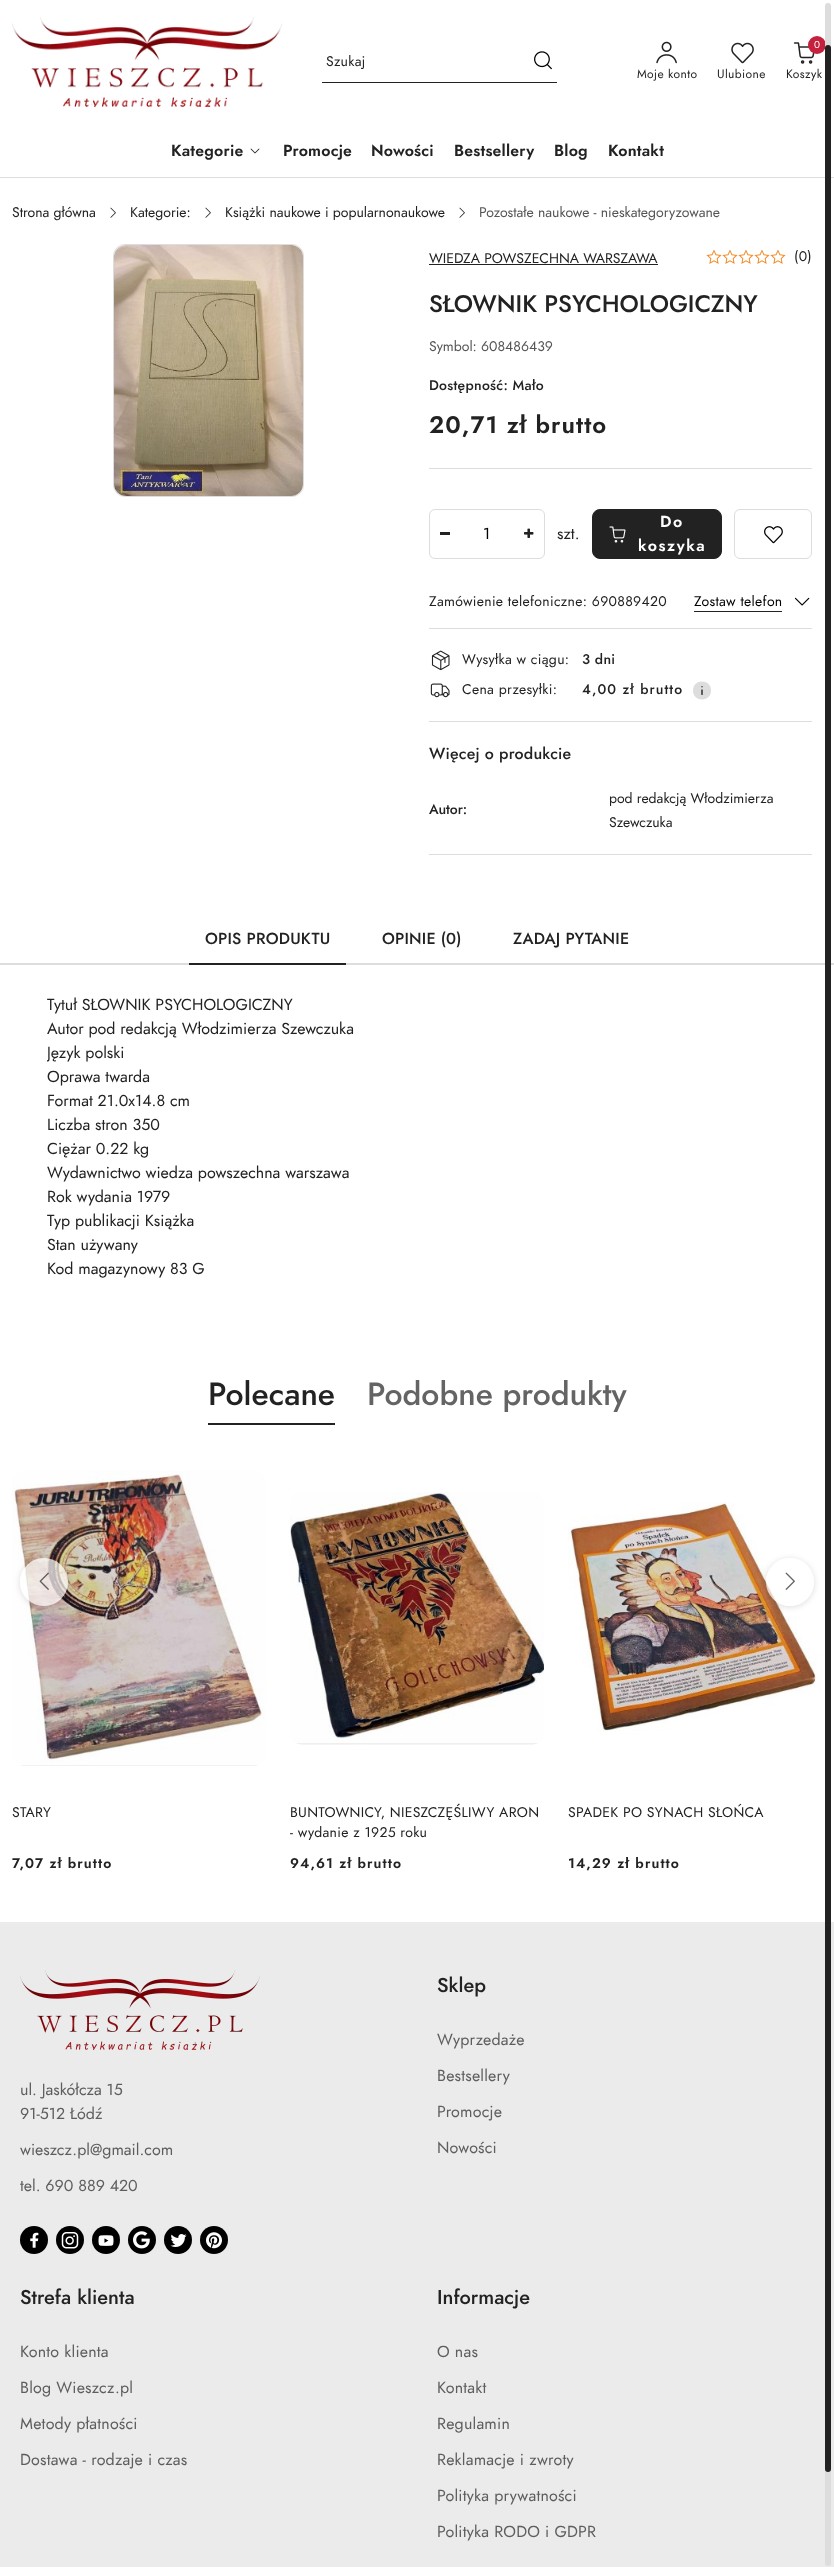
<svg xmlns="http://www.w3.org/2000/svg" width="834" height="2567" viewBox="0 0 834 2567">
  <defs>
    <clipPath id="clip1"><rect x="47" y="993" width="740" height="333"/></clipPath>
    <clipPath id="clip2"><path d="M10 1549H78V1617H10ZM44 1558C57.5 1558 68 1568.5 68 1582C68 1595.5 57.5 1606 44 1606C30.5 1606 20 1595.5 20 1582C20 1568.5 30.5 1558 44 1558Z" clip-rule="evenodd"/></clipPath>
    <clipPath id="clip3"><path d="M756 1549H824V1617H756ZM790 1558C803.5 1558 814 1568.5 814 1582C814 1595.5 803.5 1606 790 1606C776.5 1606 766 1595.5 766 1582C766 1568.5 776.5 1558 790 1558Z" clip-rule="evenodd"/></clipPath>
  </defs>
  <rect width="100%" height="100%" fill="rgb(255,255,255)"/>
  <image x="12" y="17" width="270" height="90" href="pic1.png"/>
  <rect x="322" y="82" width="235" height="1" fill="rgb(34,34,34)"/>
  <text x="326" y="66" font-family="Jost" font-size="14" letter-spacing="0.3" fill="rgb(34,34,34)">Szukaj</text>
  <image x="534" y="51" width="18" height="19" href="pic2.png"/>
  <image x="656" y="41" width="21" height="23" href="pic3.png"/>
  <text x="637" y="78" font-family="Jost" font-size="12" letter-spacing="0.4" fill="rgb(34,34,34)">Moje konto</text>
  <image x="731" y="42" width="23" height="22" href="pic4.png"/>
  <text x="717" y="78" font-family="Jost" font-size="12" letter-spacing="0.4" fill="rgb(34,34,34)">Ulubione</text>
  <image x="793" y="42" width="22" height="22" href="pic5.png"/>
  <circle cx="817" cy="45" r="9" fill="rgb(197,32,61)"/>
  <text x="814" y="48" font-family="Jost" font-size="10" fill="rgb(255,255,255)">0</text>
  <text x="786" y="78" font-family="Jost" font-size="12" letter-spacing="0.4" fill="rgb(34,34,34)">Koszyk</text>
  <rect x="0" y="177" width="834" height="1" fill="rgb(221,221,221)"/>
  <text x="171" y="156" font-family="Jost" font-size="16" font-weight="600" letter-spacing="0.2" fill="rgb(34,34,34)">Kategorie</text>
  <image x="250" y="148" width="10" height="6" href="pic6.png"/>
  <g font-family="Jost" font-size="16" font-weight="600" letter-spacing="0.2" fill="rgb(34,34,34)">
    <text x="283" y="156">Promocje</text>
    <text x="371" y="156">Nowości</text>
    <text x="454" y="156">Bestsellery</text>
    <text x="554" y="156">Blog</text>
    <text x="608" y="156">Kontakt</text>
  </g>
  <text x="12" y="217" font-family="Jost" font-size="14" fill="rgb(34,34,34)">Strona główna</text>
  <image x="110" y="207" width="6" height="11" href="pic7.png"/>
  <text x="130" y="217" font-family="Jost" font-size="14" fill="rgb(34,34,34)">Kategorie:</text>
  <image x="205" y="207" width="6" height="11" href="pic7.png"/>
  <text x="225" y="217" font-family="Jost" font-size="14" fill="rgb(34,34,34)">Książki naukowe i popularnonaukowe</text>
  <image x="459" y="207" width="6" height="11" href="pic7.png"/>
  <text x="479" y="217" font-family="Jost" font-size="14" fill="rgb(85,85,85)">Pozostałe naukowe - nieskategoryzowane</text>
  <rect x="113.5" y="244.5" width="190" height="252" rx="11.5" fill="none" stroke="rgb(221,221,221)"/>
  <image x="114" y="245" width="189" height="251" href="pic8.png"/>
  <text x="429" y="263" font-family="Jost" font-size="14" fill="rgb(34,34,34)">WIEDZA POWSZECHNA WARSZAWA</text>
  <rect x="429" y="264" width="229" height="1" fill="rgb(34,34,34)"/>
  <image x="706" y="249" width="16" height="15" href="pic9.png"/>
  <image x="722" y="249" width="16" height="15" href="pic9.png"/>
  <image x="738" y="249" width="16" height="15" href="pic9.png"/>
  <image x="754" y="249" width="16" height="15" href="pic9.png"/>
  <image x="770" y="249" width="16" height="15" href="pic9.png"/>
  <text x="794" y="261" font-family="Jost" font-size="14" letter-spacing="0.3" fill="rgb(34,34,34)">(0)</text>
  <text x="429" y="312" font-family="Jost" font-size="24" font-weight="500" fill="rgb(34,34,34)">SŁOWNIK PSYCHOLOGICZNY</text>
  <text x="429" y="351" font-family="Jost" font-size="14" fill="rgb(85,85,85)">Symbol: 608486439</text>
  <text x="429" y="390" font-family="Jost" font-size="14" font-weight="500" letter-spacing="0.3" fill="rgb(34,34,34)">Dostępność: Mało</text>
  <text x="429" y="433" font-family="Jost" font-size="24" font-weight="600" letter-spacing="1.1" fill="rgb(34,34,34)">20,71 zł brutto</text>
  <rect x="429" y="468" width="383" height="1" fill="rgb(221,221,221)"/>
  <rect x="429.5" y="509.5" width="115" height="49" rx="5.5" fill="none" stroke="rgb(221,221,221)"/>
  <rect x="440" y="532" width="10" height="3" fill="rgb(34,34,34)"/>
  <text x="483" y="539" font-family="Jost" font-size="16" fill="rgb(0,0,0)">1</text>
  <image x="524" y="528" width="10" height="10" href="pic10.png"/>
  <text x="557" y="539" font-family="Jost" font-size="16" fill="rgb(34,34,34)">szt.</text>
  <rect x="592.5" y="509.5" width="129" height="49" rx="7.5" fill="rgb(34,34,34)" stroke="rgb(34,34,34)"/>
  <text x="660" y="527" font-family="Jost" font-size="16" font-weight="600" letter-spacing="1.5" fill="rgb(255,255,255)">Do</text>
  <image x="609" y="526" width="17" height="17" href="pic11.png"/>
  <text x="638" y="551" font-family="Jost" font-size="16" font-weight="600" letter-spacing="1.5" fill="rgb(255,255,255)">koszyka</text>
  <rect x="734.5" y="509.5" width="77" height="49" rx="5.5" fill="none" stroke="rgb(221,221,221)"/>
  <image x="764" y="526" width="19" height="18" href="pic12.png"/>
  <text x="429" y="606" font-family="Jost" font-size="14" letter-spacing="0.3" fill="rgb(34,34,34)">Zamówienie telefoniczne: 690889420</text>
  <text x="694" y="606" font-family="Jost" font-size="14" letter-spacing="0.3" fill="rgb(0,0,0)">Zostaw telefon</text>
  <rect x="694" y="611" width="88" height="1" fill="rgb(34,34,34)"/>
  <image x="794" y="597" width="16" height="9" href="pic13.png"/>
  <rect x="429" y="628" width="383" height="1" fill="rgb(221,221,221)"/>
  <rect x="429" y="721" width="383" height="1" fill="rgb(221,221,221)"/>
  <image x="431" y="650" width="19" height="21" href="pic14.png"/>
  <text x="462" y="664" font-family="Jost" font-size="14" letter-spacing="0.3" fill="rgb(34,34,34)">Wysyłka w ciągu:</text>
  <text x="582" y="664" font-family="Jost" font-size="14" font-weight="500" letter-spacing="0.3" fill="rgb(34,34,34)">3 dni</text>
  <image x="430" y="683" width="20" height="15" href="pic15.png"/>
  <text x="462" y="694" font-family="Jost" font-size="14" letter-spacing="0.3" fill="rgb(34,34,34)">Cena przesyłki:</text>
  <text x="582" y="694" font-family="Jost" font-size="14" font-weight="500" letter-spacing="1.1" fill="rgb(34,34,34)">4,00 zł brutto</text>
  <path d="M711 690.5C711 702.5 693 702.5 693 690.5C693 678.5 711 678.5 711 690.5Z" fill="rgb(221,221,221)"/>
  <image x="701" y="686" width="2" height="9" href="pic16.png"/>
  <rect x="429" y="854" width="383" height="1" fill="rgb(221,221,221)"/>
  <text x="429" y="759" font-family="Jost" font-size="16" font-weight="500" letter-spacing="0.2" fill="rgb(34,34,34)">Więcej o produkcie</text>
  <text x="429" y="814" font-family="Jost" font-size="14" font-weight="500" fill="rgb(34,34,34)">Autor:</text>
  <g font-family="Jost" font-size="14" fill="rgb(34,34,34)">
    <text>
      <tspan x="609" y="803">pod redakcją Włodzimierza</tspan>
      <tspan x="609" y="827">Szewczuka</tspan>
    </text>
  </g>
  <rect x="0" y="963" width="834" height="2" fill="rgb(221,221,221)"/>
  <rect x="189" y="963" width="157" height="2" fill="rgb(34,34,34)"/>
  <g font-family="Jost" font-size="16" font-weight="500" letter-spacing="0.2" fill="rgb(34,34,34)">
    <text x="205" y="944">OPIS PRODUKTU</text>
    <text x="382" y="944">OPINIE (0)</text>
    <text x="513" y="944">ZADAJ PYTANIE</text>
  </g>
  <g font-family="Jost" font-size="16" fill="rgb(34,34,34)">
    <text>
      <tspan x="47" y="1010">Tytuł SŁOWNIK PSYCHOLOGICZNY</tspan>
      <tspan x="47" y="1034">Autor pod redakcją Włodzimierza Szewczuka</tspan>
    </text>
  </g>
  <g clip-path="url(#clip1)">
    <text x="47" y="1058" font-family="Jost" font-size="16" fill="rgb(34,34,34)">Język polski</text>
  </g>
  <g font-family="Jost" font-size="16" fill="rgb(34,34,34)">
    <text>
      <tspan x="47" y="1082">Oprawa twarda</tspan>
      <tspan x="47" y="1106">Format 21.0x14.8 cm</tspan>
      <tspan x="47" y="1130">Liczba stron 350</tspan>
      <tspan x="47" y="1154">Ciężar 0.22 kg</tspan>
      <tspan x="47" y="1178">Wydawnictwo wiedza powszechna warszawa</tspan>
      <tspan x="47" y="1202">Rok wydania 1979</tspan>
      <tspan x="47" y="1226">Typ publikacji Książka</tspan>
      <tspan x="47" y="1250">Stan używany</tspan>
      <tspan x="47" y="1274">Kod magazynowy 83 G</tspan>
    </text>
  </g>
  <text x="208" y="1405" font-family="Jost" font-size="32" font-weight="500" fill="rgb(34,34,34)">Polecane</text>
  <rect x="208" y="1423" width="127" height="2" fill="rgb(34,34,34)"/>
  <text x="367" y="1405" font-family="Jost" font-size="32" font-weight="500" fill="rgb(100,100,100)">Podobne produkty</text>
  <image x="12" y="1471" width="254" height="295" href="pic19.png"/>
  <g clip-path="url(#clip2)">
    <rect x="20" y="1559" width="48" height="48" rx="24" fill="rgba(0,0,0,0.14)" filter="blur(3px)"/>
  </g>
  <circle cx="44" cy="1582" r="24" fill="rgba(255,255,255,0.7)"/>
  <image x="39" y="1572" width="10" height="18" href="pic17.png"/>
  <image x="568" y="1502" width="254" height="229" href="pic21.png"/>
  <g clip-path="url(#clip3)">
    <rect x="766" y="1559" width="48" height="48" rx="24" fill="rgba(0,0,0,0.14)" filter="blur(3px)"/>
  </g>
  <circle cx="790" cy="1582" r="24" fill="rgba(255,255,255,0.7)"/>
  <image x="785" y="1572" width="10" height="18" href="pic18.png"/>
  <text x="12" y="1817" font-family="Jost" font-size="14" letter-spacing="0.3" fill="rgb(34,34,34)">STARY</text>
  <text x="12" y="1868" font-family="Jost" font-size="14" font-weight="600" letter-spacing="1.1" fill="rgb(34,34,34)">7,07 zł brutto</text>
  <image x="290" y="1492" width="254" height="253" href="pic20.png"/>
  <g font-family="Jost" font-size="14" letter-spacing="0.3" fill="rgb(34,34,34)">
    <text>
      <tspan x="290" y="1817">BUNTOWNICY, NIESZCZĘŚLIWY ARON</tspan>
      <tspan x="290" y="1837">- wydanie z 1925 roku</tspan>
    </text>
  </g>
  <text x="290" y="1868" font-family="Jost" font-size="14" font-weight="600" letter-spacing="1.1" fill="rgb(34,34,34)">94,61 zł brutto</text>
  <text x="568" y="1817" font-family="Jost" font-size="14" letter-spacing="0.3" fill="rgb(34,34,34)">SPADEK PO SYNACH SŁOŃCA</text>
  <text x="568" y="1868" font-family="Jost" font-size="14" font-weight="600" letter-spacing="1.1" fill="rgb(34,34,34)">14,29 zł brutto</text>
  <rect x="0" y="1922" width="834" height="645" fill="rgb(235,235,235)"/>
  <image x="20" y="1970" width="240" height="80" href="pic22.png"/>
  <g font-family="Jost" font-size="16" fill="rgb(94,94,94)">
    <text>
      <tspan x="20" y="2095">ul. Jaskółcza 15</tspan>
      <tspan x="20" y="2119">91-512 Łódź</tspan>
    </text>
    <text x="20" y="2155">wieszcz.pl@gmail.com</text>
    <text x="20" y="2191">tel. 690 889 420</text>
  </g>
  <circle cx="34" cy="2240" r="14" fill="rgb(0,0,0)"/>
  <image x="30" y="2232" width="9" height="16" href="pic23.png"/>
  <circle cx="70" cy="2240" r="14" fill="rgb(0,0,0)"/>
  <image x="61" y="2232" width="18" height="17" href="pic24.png"/>
  <circle cx="106" cy="2240" r="14" fill="rgb(0,0,0)"/>
  <image x="98" y="2235" width="16" height="11" href="pic25.png"/>
  <circle cx="142" cy="2240" r="14" fill="rgb(0,0,0)"/>
  <image x="133" y="2231" width="17" height="18" href="pic26.png"/>
  <circle cx="178" cy="2240" r="14" fill="rgb(0,0,0)"/>
  <image x="170" y="2234" width="17" height="13" href="pic27.png"/>
  <circle cx="214" cy="2240" r="14" fill="rgb(0,0,0)"/>
  <image x="206" y="2232" width="16" height="17" href="pic28.png"/>
  <text x="437" y="1992" font-family="Jost" font-size="20" font-weight="500" fill="rgb(34,34,34)">Sklep</text>
  <g font-family="Jost" font-size="16" letter-spacing="0.2" fill="rgb(94,94,94)">
    <text x="437" y="2045">Wyprzedaże</text>
    <text x="437" y="2081">Bestsellery</text>
    <text x="437" y="2117">Promocje</text>
    <text x="437" y="2153">Nowości</text>
  </g>
  <text x="20" y="2304" font-family="Jost" font-size="20" font-weight="500" fill="rgb(34,34,34)">Strefa klienta</text>
  <g font-family="Jost" font-size="16" letter-spacing="0.2" fill="rgb(94,94,94)">
    <text x="20" y="2357">Konto klienta</text>
    <text x="20" y="2393">Blog Wieszcz.pl</text>
    <text x="20" y="2429">Metody płatności</text>
    <text x="20" y="2465">Dostawa - rodzaje i czas</text>
  </g>
  <text x="437" y="2304" font-family="Jost" font-size="20" font-weight="500" fill="rgb(34,34,34)">Informacje</text>
  <g font-family="Jost" font-size="16" letter-spacing="0.2" fill="rgb(94,94,94)">
    <text x="437" y="2357">O nas</text>
    <text x="437" y="2393">Kontakt</text>
    <text x="437" y="2429">Regulamin</text>
    <text x="437" y="2465">Reklamacje i zwroty</text>
    <text x="437" y="2501">Polityka prywatności</text>
    <text x="437" y="2537">Polityka RODO i GDPR</text>
  </g>
  <rect x="825" y="3" width="6" height="2563" rx="3" fill="rgb(221,221,221)"/>
  <rect x="825" y="45" width="6" height="2427" rx="3" fill="rgb(34,34,34)"/>
</svg>
